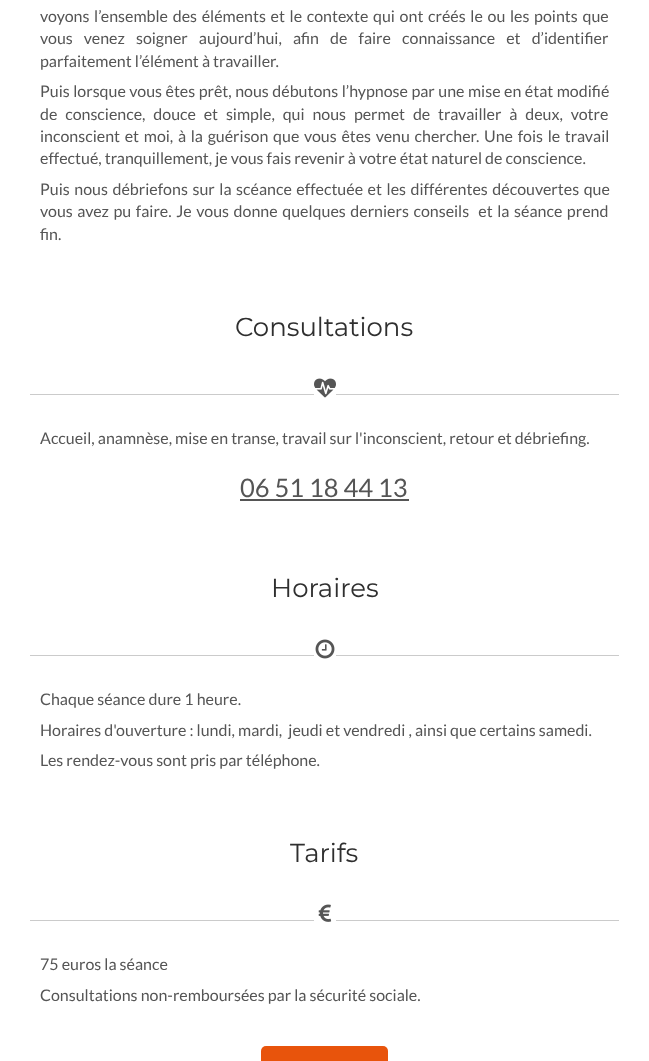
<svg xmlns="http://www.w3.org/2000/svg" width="649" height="1061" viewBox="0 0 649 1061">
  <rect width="100%" height="100%" fill="rgb(255,255,255)"/>
  <g font-family="Lato" font-size="16" fill="rgb(85,85,85)">
    <text xml:space="preserve"><tspan x="40" y="22" word-spacing="1.6">voyons l’ensemble des éléments et le contexte qui ont créés le ou les points que</tspan><tspan x="40" y="44" word-spacing="8">vous venez soigner aujourd’hui, afin de faire connaissance et d’identifier</tspan><tspan x="40" y="67">parfaitement l’élément à travailler.</tspan><tspan x="40" y="97" word-spacing="0.4">Puis lorsque vous êtes prêt, nous débutons l’hypnose par une mise en état modifié</tspan><tspan x="40" y="120" word-spacing="4.75">de conscience, douce et simple, qui nous permet de travailler à deux, votre</tspan><tspan x="40" y="142" word-spacing="1.6">inconscient et moi, à la guérison que vous êtes venu chercher. Une fois le travail</tspan><tspan x="40" y="164">effectué, tranquillement, je vous fais revenir à votre état naturel de conscience.</tspan><tspan x="40" y="195" word-spacing="1.5">Puis nous débriefons sur la scéance effectuée et les différentes découvertes que</tspan><tspan x="40" y="217" word-spacing="1.5">vous avez pu faire. Je vous donne quelques derniers conseils  et la séance prend</tspan><tspan x="40" y="240">fin.</tspan></text>
  </g>
  <text x="235" y="336" font-family="Montserrat" font-size="26" font-weight="100" fill="rgb(47,47,47)">Consultations</text>
  <rect x="30" y="394" width="284" height="1" fill="rgb(203,203,203)"/>
  <image x="314" y="378" width="22" height="20" href="pic1.png"/>
  <rect x="336" y="394" width="283" height="1" fill="rgb(203,203,203)"/>
  <text x="40" y="444" font-family="Lato" font-size="16" fill="rgb(85,85,85)">Accueil, anamnèse, mise en transe, travail sur l'inconscient, retour et débriefing.</text>
  <text x="240" y="497" font-family="Lato" font-size="25.5" fill="rgb(85,85,85)">06 51 18 44 13</text>
  <rect x="240" y="499" width="169" height="2" fill="rgb(85,85,85)"/>
  <text x="271" y="597" font-family="Montserrat" font-size="26" font-weight="100" fill="rgb(47,47,47)">Horaires</text>
  <rect x="30" y="655" width="284" height="1" fill="rgb(203,203,203)"/>
  <image x="315" y="639" width="20" height="20" href="pic2.png"/>
  <rect x="336" y="655" width="283" height="1" fill="rgb(203,203,203)"/>
  <g font-family="Lato" font-size="16" fill="rgb(85,85,85)">
    <text xml:space="preserve"><tspan x="40" y="705">Chaque séance dure 1 heure.</tspan><tspan x="40" y="736">Horaires d'ouverture : lundi, mardi,  jeudi et vendredi , ainsi que certains samedi.</tspan><tspan x="40" y="766">Les rendez-vous sont pris par téléphone.</tspan></text>
  </g>
  <text x="290" y="862" font-family="Montserrat" font-size="26" font-weight="100" fill="rgb(47,47,47)">Tarifs</text>
  <rect x="30" y="920" width="284" height="1" fill="rgb(203,203,203)"/>
  <image x="318" y="904" width="14" height="18" href="pic3.png"/>
  <rect x="336" y="920" width="283" height="1" fill="rgb(203,203,203)"/>
  <g font-family="Lato" font-size="16" fill="rgb(85,85,85)">
    <text>
      <tspan x="40" y="970">75 euros la séance</tspan>
      <tspan x="40" y="1001">Consultations non-remboursées par la sécurité sociale.</tspan>
    </text>
  </g>
  <rect x="261" y="1046" width="127" height="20" rx="5" fill="rgb(232,84,12)"/>
</svg>
